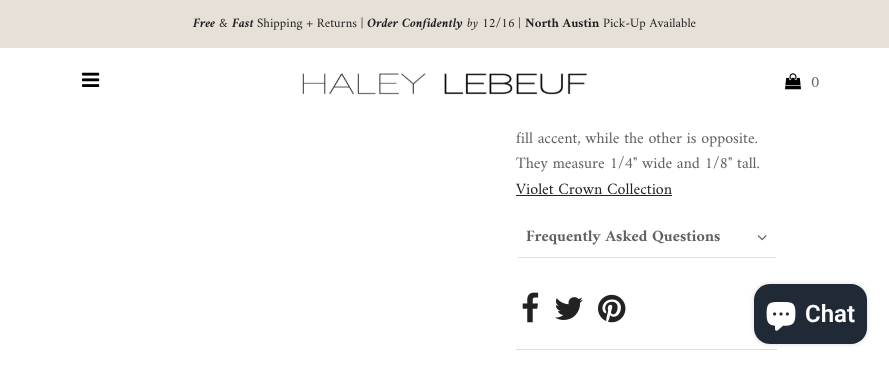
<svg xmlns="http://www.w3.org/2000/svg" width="889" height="365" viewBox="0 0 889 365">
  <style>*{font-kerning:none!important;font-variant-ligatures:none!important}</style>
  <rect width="100%" height="100%" fill="rgb(255,255,255)"/>
  <rect x="0" y="0" width="889" height="48" fill="rgb(230,224,215)"/>
  <text x="193" y="27" font-family="Amiri" font-size="13" font-weight="bold" font-style="italic" fill="rgb(34,34,34)">Free</text>
  <text x="219" y="27" font-family="Amiri" font-size="13" fill="rgb(34,34,34)">&amp;</text>
  <text x="232" y="27" font-family="Amiri" font-size="13" font-weight="bold" font-style="italic" fill="rgb(34,34,34)">Fast</text>
  <text x="257" y="27" font-family="Amiri" font-size="13" fill="rgb(34,34,34)">Shipping + Returns |</text>
  <text x="367" y="27" font-family="Amiri" font-size="13" font-weight="bold" font-style="italic" fill="rgb(34,34,34)">Order Confidently</text>
  <text x="467" y="27" font-family="Amiri" font-size="13" font-style="italic" fill="rgb(34,34,34)">by 12/16</text>
  <text x="518" y="27" font-family="Amiri" font-size="13" fill="rgb(34,34,34)">|</text>
  <text x="525" y="27" font-family="Amiri" font-size="13" font-weight="bold" fill="rgb(34,34,34)">North Austin</text>
  <text x="603" y="27" font-family="Amiri" font-size="13" fill="rgb(34,34,34)">Pick-Up Available</text>
  <image x="82" y="72" width="18" height="15" href="pic1.png"/>
  <image x="302" y="73" width="285" height="22" href="pic2.png"/>
  <image x="785" y="73" width="16" height="17" href="pic3.png"/>
  <g font-family="Amiri" font-size="16" fill="rgb(97,97,97)">
    <text x="811" y="87">0</text>
    <text>
      <tspan x="516" y="143">fill accent, while the other is opposite.</tspan>
      <tspan x="516" y="168">They measure 1/4" wide and 1/8" tall.</tspan>
    </text>
  </g>
  <text x="516" y="194" font-family="Amiri" font-size="16" fill="rgb(34,34,34)">Violet Crown Collection</text>
  <rect x="516" y="195" width="156" height="1" fill="rgb(34,34,34)"/>
  <rect x="518" y="257" width="258" height="1" fill="rgb(230,224,215)"/>
  <text x="526" y="241" font-family="Amiri" font-size="16" font-weight="bold" fill="rgb(97,97,97)">Frequently Asked Questions</text>
  <image x="757" y="235" width="10" height="6" href="pic4.png"/>
  <rect x="516" y="349" width="261" height="1" fill="rgb(221,221,221)"/>
  <image x="522" y="292" width="17" height="31" href="pic5.png"/>
  <image x="555" y="297" width="28" height="23" href="pic6.png"/>
  <image x="598" y="294" width="28" height="29" href="pic7.png"/>
  <rect x="754" y="284" width="113" height="60" rx="16" fill="rgba(0,0,0,0.15)" filter="blur(2.5px)"/>
  <rect x="754" y="284" width="113" height="60" rx="16" fill="rgb(32,42,54)"/>
  <image x="766" y="302" width="30" height="29" href="pic8.png"/>
  <text x="805" y="322" font-family="Roboto" font-size="24" font-weight="600" fill="rgb(255,255,255)">Chat</text>
</svg>
